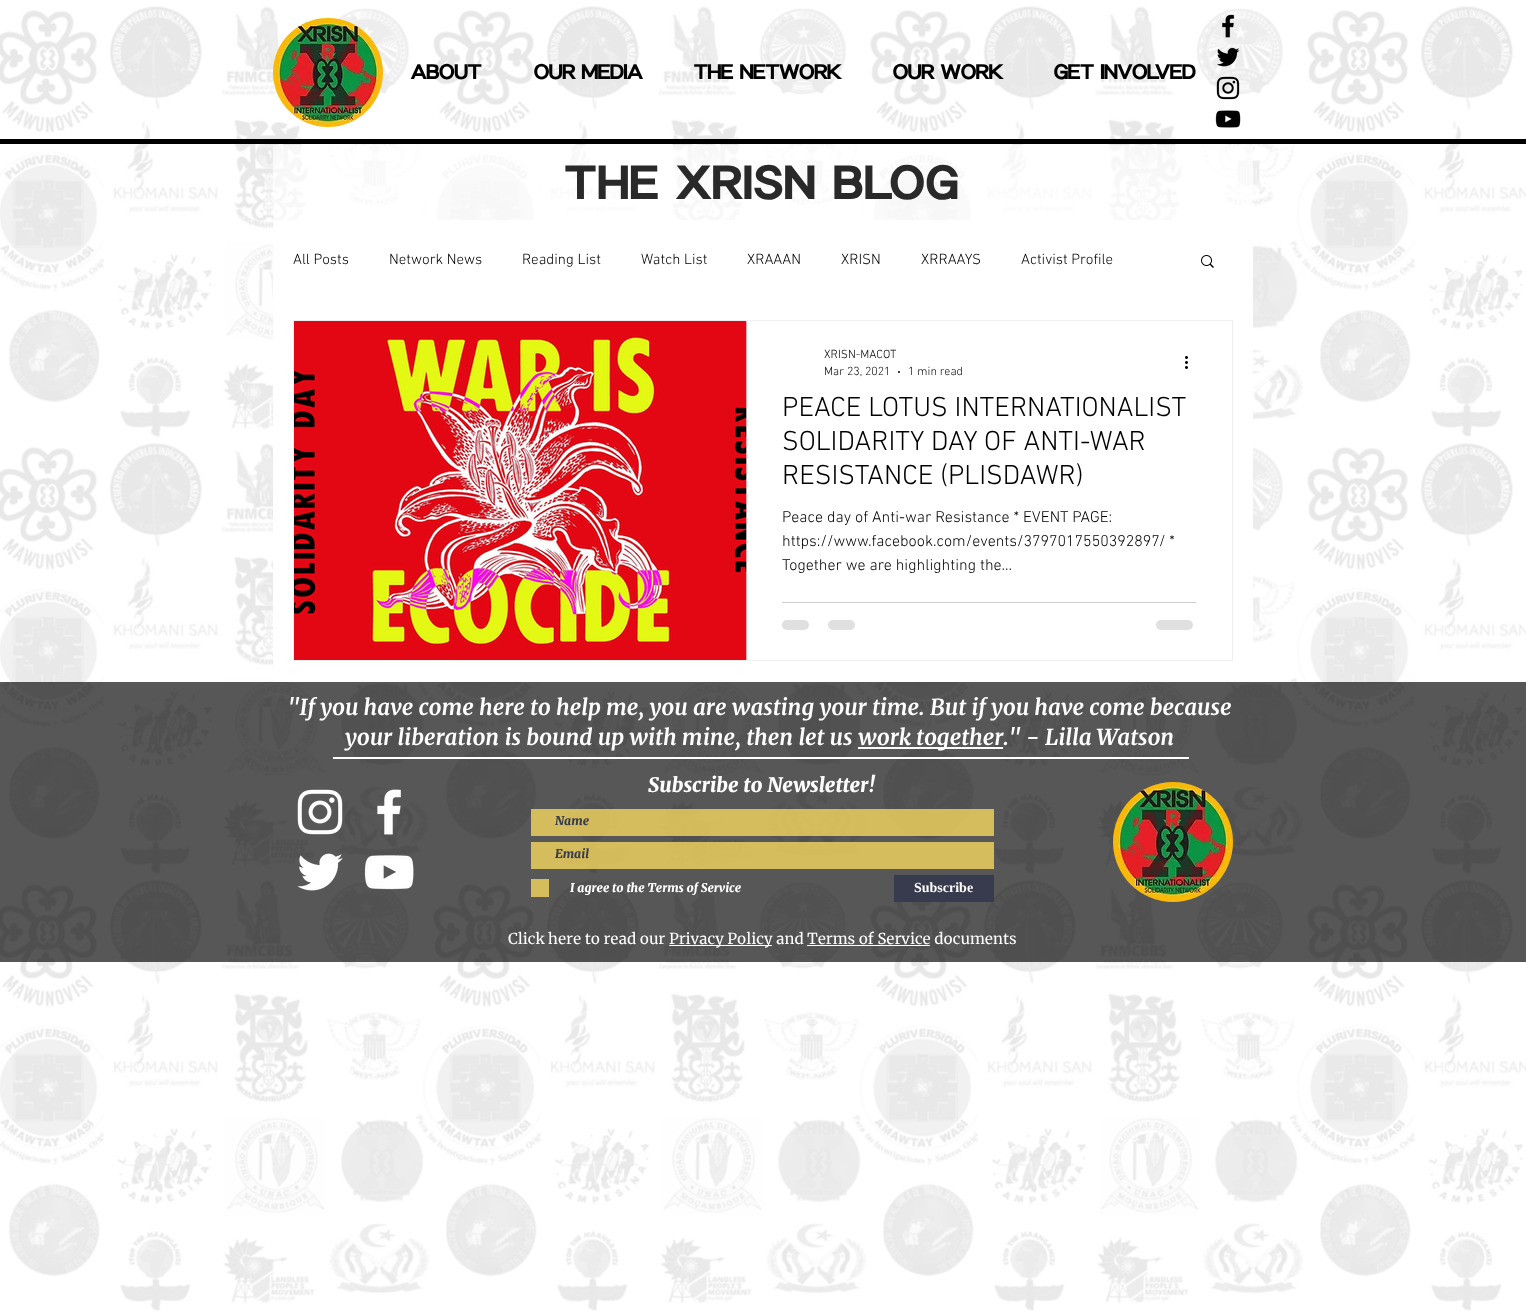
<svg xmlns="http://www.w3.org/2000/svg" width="1526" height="1316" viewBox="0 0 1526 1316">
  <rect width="100%" height="100%" fill="rgb(255,255,255)"/>
  <image x="0" y="6" width="1526" height="1305" href="pic1.png"/>
  <image x="273" y="18" width="110" height="109" href="pic2.png"/>
  <g font-family="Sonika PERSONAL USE" font-size="20" font-weight="900" fill="rgb(0,0,0)">
    <text x="411" y="79">ABOUT</text>
    <text x="534" y="79">OUR MEDIA</text>
    <text x="694" y="79">THE NETWORK</text>
    <text x="893" y="79">OUR WORK</text>
    <text x="1054" y="79">GET INVOLVED</text>
  </g>
  <image x="1222" y="14" width="13" height="24" href="pic3.png"/>
  <image x="1217" y="47" width="23" height="20" href="pic4.png"/>
  <image x="1216" y="76" width="24" height="24" href="pic5.png"/>
  <image x="1215" y="110" width="26" height="18" href="pic6.png"/>
  <rect x="0" y="139" width="1526" height="5" fill="rgb(0,0,0)"/>
  <rect x="273" y="145" width="980" height="75" fill="rgba(255,255,255,0.66)"/>
  <text x="565" y="199" font-family="Sonika PERSONAL USE" font-size="45" font-weight="900" letter-spacing="2.25" fill="rgb(41,41,41)">THE XRISN BLOG</text>
  <rect x="273" y="220" width="980" height="462" fill="rgb(255,255,255)"/>
  <g font-family="'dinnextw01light'" font-size="15" font-weight="300" fill="rgb(0,0,0)">
    <text x="293" y="264">All Posts</text>
    <text x="389" y="264">Network News</text>
    <text x="522" y="264">Reading List</text>
    <text x="641" y="264">Watch List</text>
    <text x="747" y="264">XRAAAN</text>
    <text x="841" y="264">XRISN</text>
    <text x="921" y="264">XRRAAYS</text>
    <text x="1021" y="264">Activist Profile</text>
  </g>
  <image x="1201" y="255" width="13" height="13" href="pic7.png"/>
  <rect x="293.5" y="320.5" width="939" height="340" fill="none" stroke="rgb(240,239,239)"/>
  <image x="294" y="321" width="453" height="339" href="pic8.png"/>
  <rect x="746" y="321" width="1" height="339" fill="rgba(255,255,255,0.66)"/>
  <g font-family="'dinnextw01light'" font-size="12" font-weight="300" fill="rgb(0,0,0)">
    <text>
      <tspan x="824" y="358">XRISN-MACOT</tspan>
      <tspan x="824" y="375">Mar 23, 2021</tspan>
    </text>
  </g>
  <circle cx="899" cy="372" r="1" fill="rgb(0,0,0)"/>
  <text x="908" y="375" font-family="'dinnextw01light'" font-size="12" font-weight="300" fill="rgb(0,0,0)">1 min read</text>
  <image x="1185" y="356" width="3" height="13" href="pic9.png"/>
  <g font-family="'dinnextw01light'" font-size="28" font-weight="300" fill="rgb(0,0,0)">
    <text>
      <tspan x="782" y="416">PEACE LOTUS INTERNATIONALIST</tspan>
      <tspan x="782" y="450">SOLIDARITY DAY OF ANTI-WAR</tspan>
      <tspan x="782" y="484">RESISTANCE (PLISDAWR)</tspan>
    </text>
  </g>
  <g font-family="'dinnextw01light'" font-size="16" font-weight="300" fill="rgb(0,0,0)">
    <text>
      <tspan x="782" y="522">Peace day of Anti-war Resistance * EVENT PAGE:</tspan>
      <tspan x="782" y="546">https://www.facebook.com/events/3797017550392897/ *</tspan>
      <tspan x="782" y="570">Together we are highlighting the...</tspan>
    </text>
  </g>
  <rect x="782" y="602" width="414" height="1" fill="rgb(204,204,204)"/>
  <rect x="782" y="620" width="27" height="10" rx="5" fill="rgb(224,224,224)"/>
  <rect x="828" y="620" width="27" height="10" rx="5" fill="rgb(224,224,224)"/>
  <rect x="1156" y="620" width="37" height="10" rx="5" fill="rgb(224,224,224)"/>
  <rect x="0" y="682" width="1526" height="280" fill="rgba(0,0,0,0.66)"/>
  <g font-family="Merriweather" font-size="22" font-weight="bold" font-style="italic" fill="rgb(255,255,255)">
    <text x="288" y="715">"If you have come here to help me, you are wasting your time. But if you have come because</text>
    <text x="345" y="745">your liberation is bound up with mine, then let us</text>
  </g>
  <rect x="858" y="747" width="145" height="2" fill="rgb(255,255,255)"/>
  <text x="858" y="745" font-family="Merriweather" font-size="22" font-weight="bold" font-style="italic" fill="rgb(255,255,255)">work together." - Lilla Watson</text>
  <rect x="333" y="757" width="856" height="2" fill="rgb(255,255,255)"/>
  <image x="297" y="789" width="46" height="46" href="pic10.png"/>
  <image x="377" y="789" width="24" height="46" href="pic11.png"/>
  <text x="648" y="792" font-family="Merriweather" font-size="20" font-weight="900" font-style="italic" fill="rgb(255,255,255)">Subscribe to Newsletter!</text>
  <rect x="531" y="809" width="463" height="27" fill="rgba(255,222,95,0.75)"/>
  <text x="555" y="825" font-family="Merriweather" font-size="12" font-weight="900" font-style="italic" fill="rgb(55,59,77)">Name</text>
  <rect x="531" y="842" width="463" height="27" fill="rgba(255,222,95,0.75)"/>
  <text x="555" y="858" font-family="Merriweather" font-size="12" font-weight="900" font-style="italic" fill="rgb(55,59,77)">Email</text>
  <rect x="531" y="879" width="18" height="18" fill="rgb(213,188,93)"/>
  <text x="570" y="892" font-family="Merriweather" font-size="12" font-weight="900" font-style="italic" fill="rgb(255,255,255)">I agree to the Terms of Service</text>
  <rect x="894" y="875" width="100" height="27" fill="rgb(55,59,77)"/>
  <text x="914" y="892" font-family="Liberation Serif" font-size="14" font-weight="bold" fill="rgb(255,255,255)">Subscribe</text>
  <image x="1113" y="782" width="120" height="120" href="pic12.png"/>
  <image x="297" y="853" width="46" height="38" href="pic13.png"/>
  <image x="364" y="855" width="50" height="35" href="pic14.png"/>
  <text x="508" y="944" font-family="Merriweather" font-size="15" fill="rgb(255,255,255)">Click here to read our</text>
  <rect x="669" y="945" width="103" height="1" fill="rgb(255,255,255)"/>
  <text x="669" y="944" font-family="Merriweather" font-size="15" fill="rgb(255,255,255)">Privacy Policy and Terms of Service documents</text>
  <rect x="807" y="945" width="123" height="1" fill="rgb(255,255,255)"/>
</svg>
